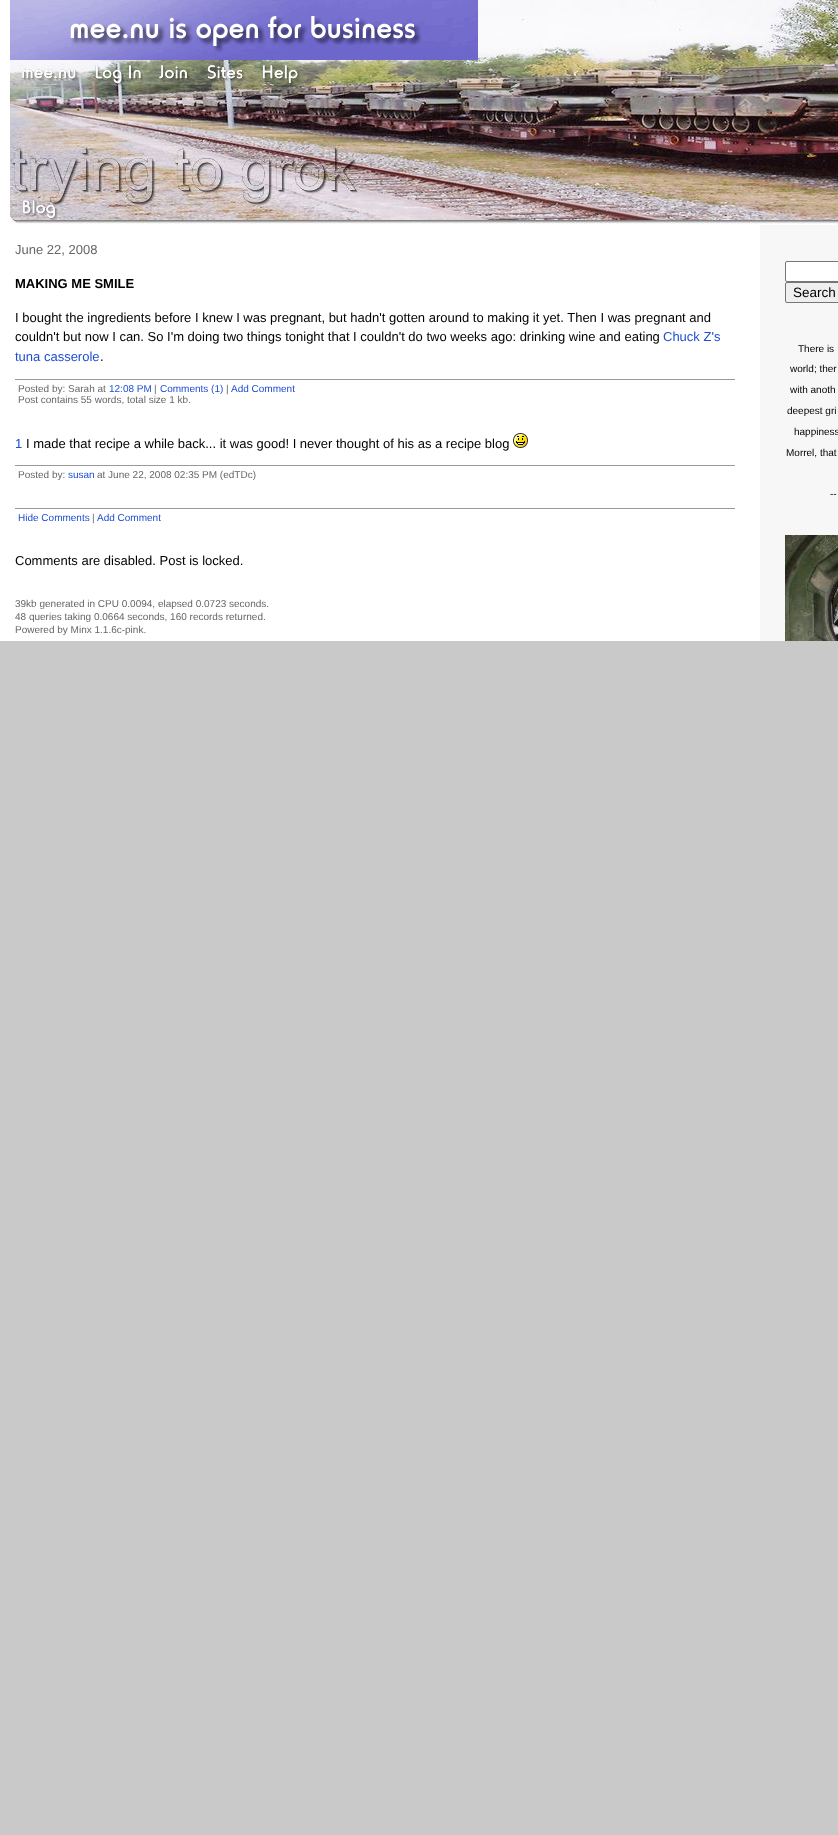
<svg xmlns="http://www.w3.org/2000/svg" width="838" height="1835" viewBox="0 0 838 1835">
  <rect width="100%" height="100%" fill="rgb(201,201,201)"/>
  <rect x="0" y="0" width="838" height="641" fill="rgb(255,255,255)"/>
  <image x="478" y="0" width="360" height="60" href="pic1.png"/>
  <image x="10" y="0" width="468" height="60" href="pic2.png"/>
  <image x="10" y="60" width="828" height="25" href="pic3.png"/>
  <image x="22" y="69" width="56" height="13" href="pic4.png"/>
  <image x="95" y="65" width="49" height="20" href="pic5.png"/>
  <image x="159" y="65" width="31" height="16" href="pic6.png"/>
  <image x="207" y="64" width="38" height="18" href="pic7.png"/>
  <image x="262" y="65" width="39" height="20" href="pic8.png"/>
  <image x="10" y="85" width="828" height="110" href="pic9.png"/>
  <image x="10" y="195" width="828" height="29" href="pic10.png"/>
  <image x="22" y="200" width="36" height="20" href="pic11.png"/>
  <text x="15" y="254" font-family="Liberation Sans" font-size="13" fill="rgb(102,102,102)">June 22, 2008</text>
  <text x="15" y="288" font-family="Liberation Sans" font-size="13" font-weight="bold" fill="rgb(0,0,0)">MAKING ME SMILE</text>
  <g font-family="Liberation Sans" font-size="13" fill="rgb(0,0,0)">
    <text>
      <tspan x="15" y="322">I bought the ingredients before I knew I was pregnant, but hadn't gotten around to making it yet. Then I was pregnant and</tspan>
      <tspan x="15" y="341">couldn't but now I can. So I'm doing two things tonight that I couldn't do two weeks ago: drinking wine and eating</tspan>
    </text>
  </g>
  <g font-family="Liberation Sans" font-size="13" fill="rgb(29,78,211)">
    <text x="663" y="341">Chuck Z's</text>
    <text x="15" y="361">tuna casserole</text>
  </g>
  <text x="100" y="361" font-family="Liberation Sans" font-size="13" fill="rgb(0,0,0)">.</text>
  <rect x="15" y="379" width="720" height="1" fill="rgb(153,153,153)"/>
  <text x="18" y="392" font-family="Liberation Sans" font-size="10" fill="rgb(102,102,102)">Posted by: Sarah at</text>
  <text x="109" y="392" font-family="Liberation Sans" font-size="10" fill="rgb(29,78,211)">12:08 PM</text>
  <text x="154" y="392" font-family="Liberation Sans" font-size="10" fill="rgb(102,102,102)">|</text>
  <text x="160" y="392" font-family="Liberation Sans" font-size="10" fill="rgb(29,78,211)">Comments (1)</text>
  <text x="226" y="392" font-family="Liberation Sans" font-size="10" fill="rgb(102,102,102)">|</text>
  <text x="231" y="392" font-family="Liberation Sans" font-size="10" fill="rgb(29,78,211)">Add Comment</text>
  <text x="18" y="403" font-family="Liberation Sans" font-size="10" fill="rgb(102,102,102)">Post contains 55 words, total size 1 kb.</text>
  <text x="15" y="448" font-family="Liberation Sans" font-size="13" fill="rgb(29,78,211)">1</text>
  <text x="26" y="448" font-family="Liberation Sans" font-size="13" fill="rgb(0,0,0)">I made that recipe a while back... it was good! I never thought of his as a recipe blog</text>
  <image x="513" y="433" width="15" height="15" href="pic12.png"/>
  <rect x="15" y="465" width="720" height="1" fill="rgb(153,153,153)"/>
  <text x="18" y="478" font-family="Liberation Sans" font-size="10" fill="rgb(102,102,102)">Posted by:</text>
  <text x="68" y="478" font-family="Liberation Sans" font-size="10" fill="rgb(29,78,211)">susan</text>
  <text x="97" y="478" font-family="Liberation Sans" font-size="10" fill="rgb(102,102,102)">at June 22, 2008 02:35 PM (edTDc)</text>
  <rect x="15" y="508" width="720" height="1" fill="rgb(153,153,153)"/>
  <text x="18" y="521" font-family="Liberation Sans" font-size="10" fill="rgb(29,78,211)">Hide Comments</text>
  <text x="92" y="521" font-family="Liberation Sans" font-size="10" fill="rgb(102,102,102)">|</text>
  <text x="97" y="521" font-family="Liberation Sans" font-size="10" fill="rgb(29,78,211)">Add Comment</text>
  <text x="15" y="565" font-family="Liberation Sans" font-size="13" fill="rgb(0,0,0)">Comments are disabled. Post is locked.</text>
  <g font-family="Liberation Sans" font-size="10" fill="rgb(102,102,102)">
    <text>
      <tspan x="15" y="607">39kb generated in CPU 0.0094, elapsed 0.0723 seconds.</tspan>
      <tspan x="15" y="620">48 queries taking 0.0664 seconds, 160 records returned.</tspan>
      <tspan x="15" y="633">Powered by Minx 1.1.6c-pink.</tspan>
    </text>
  </g>
  <rect x="760" y="225" width="78" height="416" fill="rgb(247,247,247)"/>
  <rect x="785.5" y="261.5" width="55" height="20" rx="1.5" fill="rgb(255,255,255)" stroke="rgb(118,118,118)"/>
  <rect x="785.5" y="282.5" width="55" height="20" rx="1.5" fill="rgb(239,239,239)" stroke="rgb(118,118,118)"/>
  <text x="793" y="297" font-family="Liberation Sans" font-size="13.5" fill="rgb(0,0,0)">Search</text>
  <g font-family="Liberation Sans" font-size="10" fill="rgb(0,0,0)">
    <text x="798" y="352">There is</text>
    <text x="790" y="372">world; ther</text>
    <text x="790" y="393">with anoth</text>
    <text x="787" y="414">deepest gri</text>
    <text x="794" y="435">happiness</text>
    <text x="786" y="456">Morrel, that</text>
    <text x="830" y="497">--</text>
  </g>
  <image x="785" y="535" width="53" height="106" href="pic13.png"/>
</svg>
